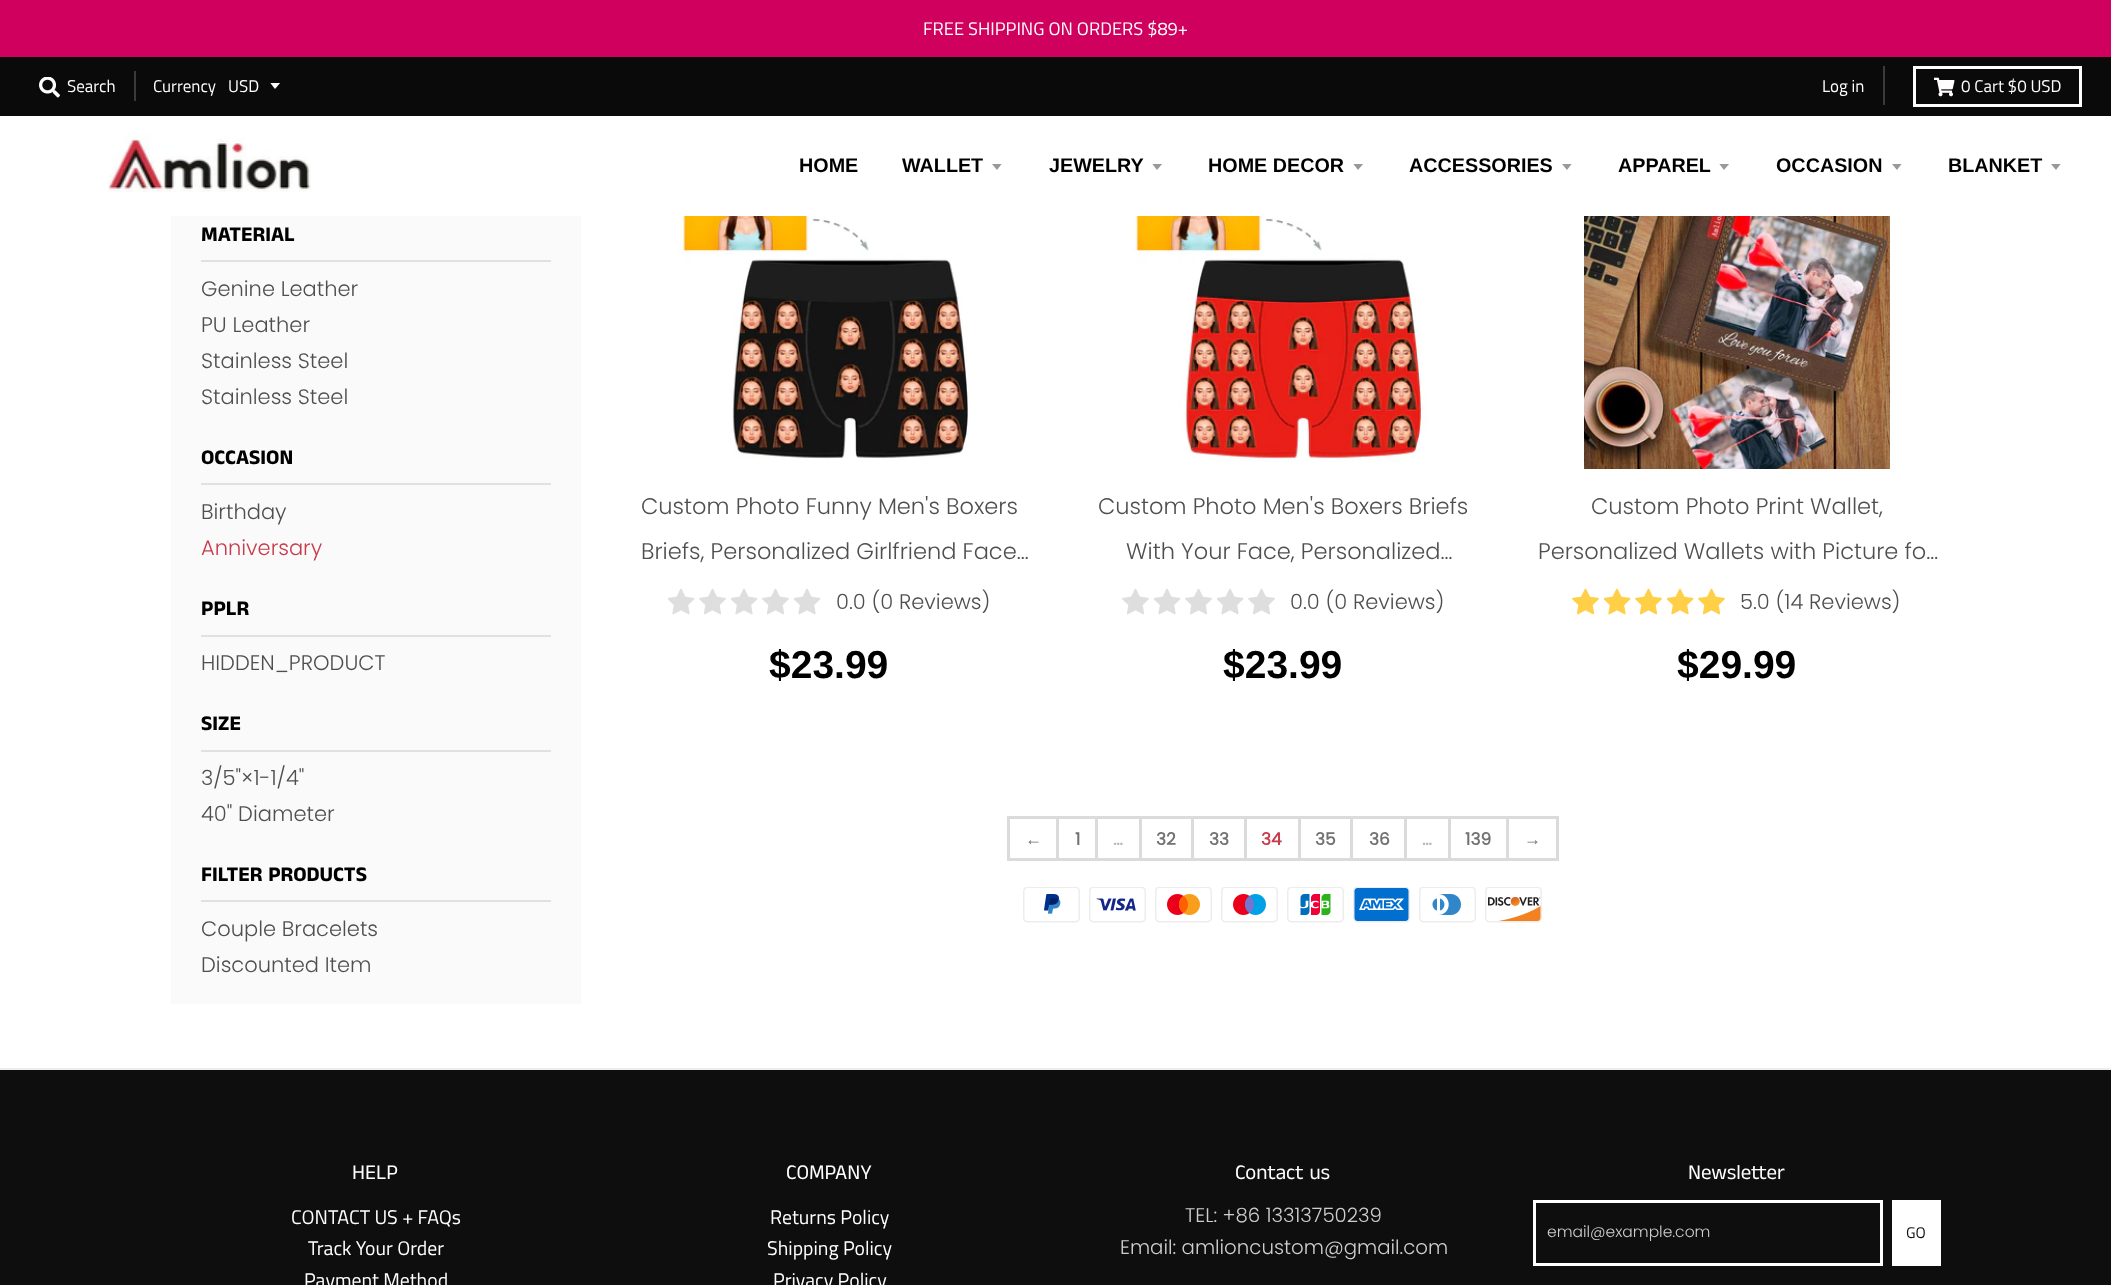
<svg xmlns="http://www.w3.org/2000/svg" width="2111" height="1285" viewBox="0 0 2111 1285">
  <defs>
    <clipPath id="clip1"><rect x="270" y="83" width="12" height="7"/></clipPath>
    <clipPath id="clip2"><rect x="992" y="164" width="12" height="7"/></clipPath>
    <clipPath id="clip3"><rect x="1152" y="164" width="12" height="7"/></clipPath>
    <clipPath id="clip4"><rect x="1353" y="164" width="12" height="7"/></clipPath>
    <clipPath id="clip5"><rect x="1562" y="164" width="12" height="7"/></clipPath>
    <clipPath id="clip6"><rect x="1719" y="164" width="12" height="7"/></clipPath>
    <clipPath id="clip7"><rect x="1892" y="164" width="12" height="7"/></clipPath>
    <clipPath id="clip8"><rect x="2051" y="164" width="12" height="7"/></clipPath>
  </defs>
  <rect width="100%" height="100%" fill="rgb(255,255,255)"/>
  <rect x="0" y="0" width="2111" height="57" fill="rgb(208,0,94)"/>
  <text x="923" y="35" font-family="Titillium Web" font-size="18.25" fill="rgb(255,255,255)">FREE SHIPPING ON ORDERS $89+</text>
  <rect x="0" y="57" width="2111" height="59" fill="rgb(10,10,10)"/>
  <image x="39" y="77" width="21" height="21" href="pic1.png"/>
  <text x="67" y="92" font-family="Titillium Web" font-size="17" fill="rgb(255,255,255)">Search</text>
  <rect x="134" y="71" width="2" height="30" fill="rgb(59,58,58)"/>
  <text x="153" y="92" font-family="Titillium Web" font-size="17" fill="rgb(255,255,255)">Currency</text>
  <g clip-path="url(#clip1)">
    <path d="M270 82.5L275 89L280.5 82.5Z" fill="rgb(255,253,253)"/>
  </g>
  <text x="228" y="92" font-family="Titillium Web" font-size="17" fill="rgb(255,255,255)">USD</text>
  <rect x="1883" y="66" width="2" height="39" fill="rgb(59,58,58)"/>
  <text x="1822" y="92" font-family="Titillium Web" font-size="17" fill="rgb(255,255,255)">Log in</text>
  <rect x="1914.5" y="67.5" width="166" height="38" fill="none" stroke="rgb(255,253,253)" stroke-width="3"/>
  <image x="1934" y="77" width="21" height="20" href="pic2.png"/>
  <text x="1961" y="92" font-family="Titillium Web" font-size="17" fill="rgb(255,255,255)">0 Cart $0 USD</text>
  <image x="108" y="133" width="203" height="59" href="pic3.png"/>
  <g font-family="Liberation Sans" font-size="19.75" font-weight="bold" fill="rgb(0,0,0)">
    <text x="799" y="172">HOME</text>
    <text x="902" y="172">WALLET</text>
  </g>
  <g clip-path="url(#clip2)">
    <path d="M991.5 163.5L997 170L1002 163.5Z" fill="rgb(153,153,153)"/>
  </g>
  <text x="1049" y="172" font-family="Liberation Sans" font-size="19.75" font-weight="bold" fill="rgb(0,0,0)">JEWELRY</text>
  <g clip-path="url(#clip3)">
    <path d="M1152 163.5L1157 170L1162.5 163.5Z" fill="rgb(153,153,153)"/>
  </g>
  <text x="1208" y="172" font-family="Liberation Sans" font-size="19.75" font-weight="bold" fill="rgb(0,0,0)">HOME DECOR</text>
  <g clip-path="url(#clip4)">
    <path d="M1353 163.5L1358 170L1363.5 163.5Z" fill="rgb(153,153,153)"/>
  </g>
  <text x="1409" y="172" font-family="Liberation Sans" font-size="19.75" font-weight="bold" fill="rgb(0,0,0)">ACCESSORIES</text>
  <g clip-path="url(#clip5)">
    <path d="M1561.5 163.5L1567 170L1572 163.5Z" fill="rgb(153,153,153)"/>
  </g>
  <text x="1618" y="172" font-family="Liberation Sans" font-size="19.75" font-weight="bold" fill="rgb(0,0,0)">APPAREL</text>
  <g clip-path="url(#clip6)">
    <path d="M1719 163.5L1724 170L1729.5 163.5Z" fill="rgb(153,153,153)"/>
  </g>
  <text x="1776" y="172" font-family="Liberation Sans" font-size="19.75" font-weight="bold" fill="rgb(0,0,0)">OCCASION</text>
  <g clip-path="url(#clip7)">
    <path d="M1891.5 163.5L1897 170L1902 163.5Z" fill="rgb(153,153,153)"/>
  </g>
  <text x="1948" y="172" font-family="Liberation Sans" font-size="19.75" font-weight="bold" fill="rgb(0,0,0)">BLANKET</text>
  <g clip-path="url(#clip8)">
    <path d="M2050.5 163.5L2056 170L2061 163.5Z" fill="rgb(153,153,153)"/>
  </g>
  <rect x="0" y="1068" width="2111" height="2" fill="rgb(237,237,237)"/>
  <rect x="171" y="216" width="410" height="788" fill="rgb(250,250,250)"/>
  <rect x="201" y="260" width="350" height="2" fill="rgb(225,225,225)"/>
  <text x="201" y="241" font-family="Anek Tamil" font-size="21" font-weight="bold" fill="rgb(0,0,0)">MATERIAL</text>
  <g font-family="Poppins" font-size="21" font-weight="300" fill="rgb(79,79,79)">
    <text>
      <tspan x="201" y="296">Genine Leather</tspan>
      <tspan x="201" y="332">PU Leather</tspan>
      <tspan x="201" y="368">Stainless Steel</tspan>
      <tspan x="201" y="404">Stainless Steel</tspan>
    </text>
  </g>
  <rect x="201" y="483" width="350" height="2" fill="rgb(225,225,225)"/>
  <text x="201" y="464" font-family="Anek Tamil" font-size="21" font-weight="bold" fill="rgb(0,0,0)">OCCASION</text>
  <text x="201" y="519" font-family="Poppins" font-size="21" font-weight="300" fill="rgb(79,79,79)">Birthday</text>
  <text x="201" y="555" font-family="Poppins" font-size="21" font-weight="300" fill="rgb(199,58,75)">Anniversary</text>
  <rect x="201" y="635" width="350" height="2" fill="rgb(225,225,225)"/>
  <text x="201" y="615" font-family="Anek Tamil" font-size="21" font-weight="bold" fill="rgb(0,0,0)">PPLR</text>
  <text x="201" y="670" font-family="Poppins" font-size="21" font-weight="300" fill="rgb(79,79,79)">HIDDEN_PRODUCT</text>
  <rect x="201" y="750" width="350" height="2" fill="rgb(225,225,225)"/>
  <text x="201" y="730" font-family="Anek Tamil" font-size="21" font-weight="bold" fill="rgb(0,0,0)">SIZE</text>
  <g font-family="Poppins" font-size="21" font-weight="300" fill="rgb(79,79,79)">
    <text>
      <tspan x="201" y="785">3/5"×1-1/4"</tspan>
      <tspan x="201" y="821">40" Diameter</tspan>
    </text>
  </g>
  <rect x="201" y="900" width="350" height="2" fill="rgb(225,225,225)"/>
  <text x="201" y="881" font-family="Anek Tamil" font-size="21" font-weight="bold" fill="rgb(0,0,0)">FILTER PRODUCTS</text>
  <g font-family="Poppins" font-size="21" font-weight="300" fill="rgb(79,79,79)">
    <text>
      <tspan x="201" y="936">Couple Bracelets</tspan>
      <tspan x="201" y="972">Discounted Item</tspan>
    </text>
  </g>
  <image x="677" y="216" width="293" height="243" href="pic4.png"/>
  <g font-family="Poppins" font-size="22.5" font-weight="300" fill="rgb(79,79,79)">
    <text x="641" y="514">Custom Photo Funny Men's Boxers</text>
    <text x="641" y="559">Briefs, Personalized Girlfriend Face…</text>
  </g>
  <image x="668" y="588" width="27" height="27" href="pic5.png"/>
  <image x="699" y="588" width="27" height="27" href="pic6.png"/>
  <image x="731" y="588" width="27" height="27" href="pic5.png"/>
  <image x="762" y="588" width="27" height="27" href="pic6.png"/>
  <image x="794" y="588" width="27" height="27" href="pic5.png"/>
  <text x="836" y="609" font-family="Poppins" font-size="21" font-weight="300" fill="rgb(79,79,79)">0.0 (0 Reviews)</text>
  <text x="769" y="678" font-family="Liberation Sans" font-size="39" font-weight="bold" fill="rgb(0,0,0)">$23.99</text>
  <image x="1132" y="216" width="296" height="246" href="pic7.png"/>
  <g font-family="Poppins" font-size="22.5" font-weight="300" fill="rgb(79,79,79)">
    <text x="1098" y="514">Custom Photo Men's Boxers Briefs</text>
    <text x="1126" y="559">With Your Face, Personalized…</text>
  </g>
  <image x="1122" y="588" width="27" height="27" href="pic6.png"/>
  <image x="1154" y="588" width="27" height="27" href="pic5.png"/>
  <image x="1185" y="588" width="27" height="27" href="pic6.png"/>
  <image x="1217" y="588" width="27" height="27" href="pic5.png"/>
  <image x="1248" y="588" width="27" height="27" href="pic6.png"/>
  <text x="1290" y="609" font-family="Poppins" font-size="21" font-weight="300" fill="rgb(79,79,79)">0.0 (0 Reviews)</text>
  <text x="1223" y="678" font-family="Liberation Sans" font-size="39" font-weight="bold" fill="rgb(0,0,0)">$23.99</text>
  <image x="1584" y="216" width="306" height="253" href="pic8.png"/>
  <g font-family="Poppins" font-size="22.5" font-weight="300" fill="rgb(79,79,79)">
    <text x="1591" y="514">Custom Photo Print Wallet,</text>
    <text x="1538" y="559">Personalized Wallets with Picture fo…</text>
  </g>
  <image x="1572" y="588" width="27" height="27" href="pic9.png"/>
  <image x="1604" y="588" width="27" height="27" href="pic10.png"/>
  <image x="1635" y="588" width="27" height="27" href="pic9.png"/>
  <image x="1667" y="588" width="27" height="27" href="pic10.png"/>
  <image x="1698" y="588" width="27" height="27" href="pic9.png"/>
  <text x="1740" y="609" font-family="Poppins" font-size="21" font-weight="300" fill="rgb(79,79,79)">5.0 (14 Reviews)</text>
  <text x="1677" y="678" font-family="Liberation Sans" font-size="39" font-weight="bold" fill="rgb(0,0,0)">$29.99</text>
  <rect x="1008.5" y="817.5" width="49" height="42" fill="none" stroke="rgb(219,219,219)" stroke-width="3"/>
  <text x="1025" y="845" font-family="Liberation Sans" font-size="17" font-weight="bold" fill="rgb(114,114,114)">←</text>
  <rect x="1059" y="816" width="500" height="3" fill="rgb(219,219,219)"/>
  <rect x="1095" y="816" width="3" height="45" fill="rgb(219,219,219)"/>
  <rect x="1059" y="858" width="39" height="3" fill="rgb(219,219,219)"/>
  <text x="1075" y="845" font-family="Poppins" font-size="17" font-weight="bold" fill="rgb(114,114,114)">1</text>
  <rect x="1139" y="816" width="3" height="45" fill="rgb(219,219,219)"/>
  <rect x="1098" y="858" width="44" height="3" fill="rgb(219,219,219)"/>
  <text x="1113" y="845" font-family="Poppins" font-size="17" font-weight="bold" fill="rgb(184,184,184)">…</text>
  <rect x="1191" y="816" width="3" height="45" fill="rgb(219,219,219)"/>
  <rect x="1142" y="858" width="52" height="3" fill="rgb(219,219,219)"/>
  <text x="1156" y="845" font-family="Poppins" font-size="17" font-weight="bold" fill="rgb(114,114,114)">32</text>
  <rect x="1244" y="816" width="3" height="45" fill="rgb(219,219,219)"/>
  <rect x="1194" y="858" width="53" height="3" fill="rgb(219,219,219)"/>
  <text x="1209" y="845" font-family="Poppins" font-size="17" font-weight="bold" fill="rgb(114,114,114)">33</text>
  <rect x="1298" y="816" width="3" height="45" fill="rgb(219,219,219)"/>
  <rect x="1247" y="858" width="54" height="3" fill="rgb(219,219,219)"/>
  <text x="1261" y="845" font-family="Poppins" font-size="17" font-weight="bold" fill="rgb(199,58,75)">34</text>
  <rect x="1350" y="816" width="3" height="45" fill="rgb(219,219,219)"/>
  <rect x="1301" y="858" width="52" height="3" fill="rgb(219,219,219)"/>
  <text x="1315" y="845" font-family="Poppins" font-size="17" font-weight="bold" fill="rgb(114,114,114)">35</text>
  <rect x="1404" y="816" width="3" height="45" fill="rgb(219,219,219)"/>
  <rect x="1353" y="858" width="54" height="3" fill="rgb(219,219,219)"/>
  <text x="1369" y="845" font-family="Poppins" font-size="17" font-weight="bold" fill="rgb(114,114,114)">36</text>
  <rect x="1448" y="816" width="3" height="45" fill="rgb(219,219,219)"/>
  <rect x="1407" y="858" width="44" height="3" fill="rgb(219,219,219)"/>
  <text x="1422" y="845" font-family="Poppins" font-size="17" font-weight="bold" fill="rgb(184,184,184)">…</text>
  <rect x="1506" y="816" width="3" height="45" fill="rgb(219,219,219)"/>
  <rect x="1451" y="858" width="58" height="3" fill="rgb(219,219,219)"/>
  <text x="1465" y="845" font-family="Poppins" font-size="17" font-weight="bold" fill="rgb(114,114,114)">139</text>
  <rect x="1556" y="816" width="3" height="45" fill="rgb(219,219,219)"/>
  <rect x="1509" y="858" width="50" height="3" fill="rgb(219,219,219)"/>
  <text x="1524" y="845" font-family="Liberation Sans" font-size="17" font-weight="bold" fill="rgb(114,114,114)">→</text>
  <image x="1023" y="887" width="57" height="36" href="pic11.png"/>
  <image x="1089" y="887" width="57" height="36" href="pic12.png"/>
  <image x="1155" y="887" width="57" height="36" href="pic13.png"/>
  <image x="1221" y="887" width="57" height="36" href="pic14.png"/>
  <image x="1287" y="887" width="57" height="36" href="pic15.png"/>
  <image x="1353" y="887" width="57" height="36" href="pic16.png"/>
  <image x="1419" y="887" width="57" height="36" href="pic17.png"/>
  <image x="1485" y="887" width="57" height="36" href="pic18.png"/>
  <rect x="0" y="1070" width="2111" height="215" fill="rgb(15,14,14)"/>
  <text x="352" y="1179" font-family="Anek Tamil" font-size="21" fill="rgb(255,255,255)">HELP</text>
  <g font-family="Titillium Web" font-size="19.75" fill="rgb(255,255,255)">
    <text x="291" y="1224">CONTACT US + FAQs</text>
    <text x="308" y="1255">Track Your Order</text>
    <text x="304" y="1287">Payment Method</text>
  </g>
  <text x="786" y="1179" font-family="Anek Tamil" font-size="21" fill="rgb(255,255,255)">COMPANY</text>
  <g font-family="Titillium Web" font-size="19.75" fill="rgb(255,255,255)">
    <text x="770" y="1224">Returns Policy</text>
    <text x="767" y="1255">Shipping Policy</text>
    <text x="773" y="1287">Privacy Policy</text>
  </g>
  <text x="1235" y="1179" font-family="Anek Tamil" font-size="21" fill="rgb(255,255,255)">Contact us</text>
  <g font-family="Poppins" font-size="19.75" font-weight="300" fill="rgb(207,206,206)">
    <text x="1185" y="1222">TEL: +86 13313750239</text>
    <text x="1120" y="1254">Email: amlioncustom@gmail.com</text>
  </g>
  <text x="1688" y="1179" font-family="Anek Tamil" font-size="21" fill="rgb(255,255,255)">Newsletter</text>
  <rect x="1534.5" y="1201.5" width="347" height="63" fill="none" stroke="rgb(255,255,255)" stroke-width="3"/>
  <text x="1547" y="1237" font-family="Poppins" font-size="15.5" font-weight="300" fill="rgb(207,206,206)">email@example.com</text>
  <rect x="1892" y="1200" width="49" height="66" fill="rgb(255,255,255)"/>
  <text x="1906" y="1238" font-family="Titillium Web" font-size="15.5" fill="rgb(15,14,14)">GO</text>
</svg>
